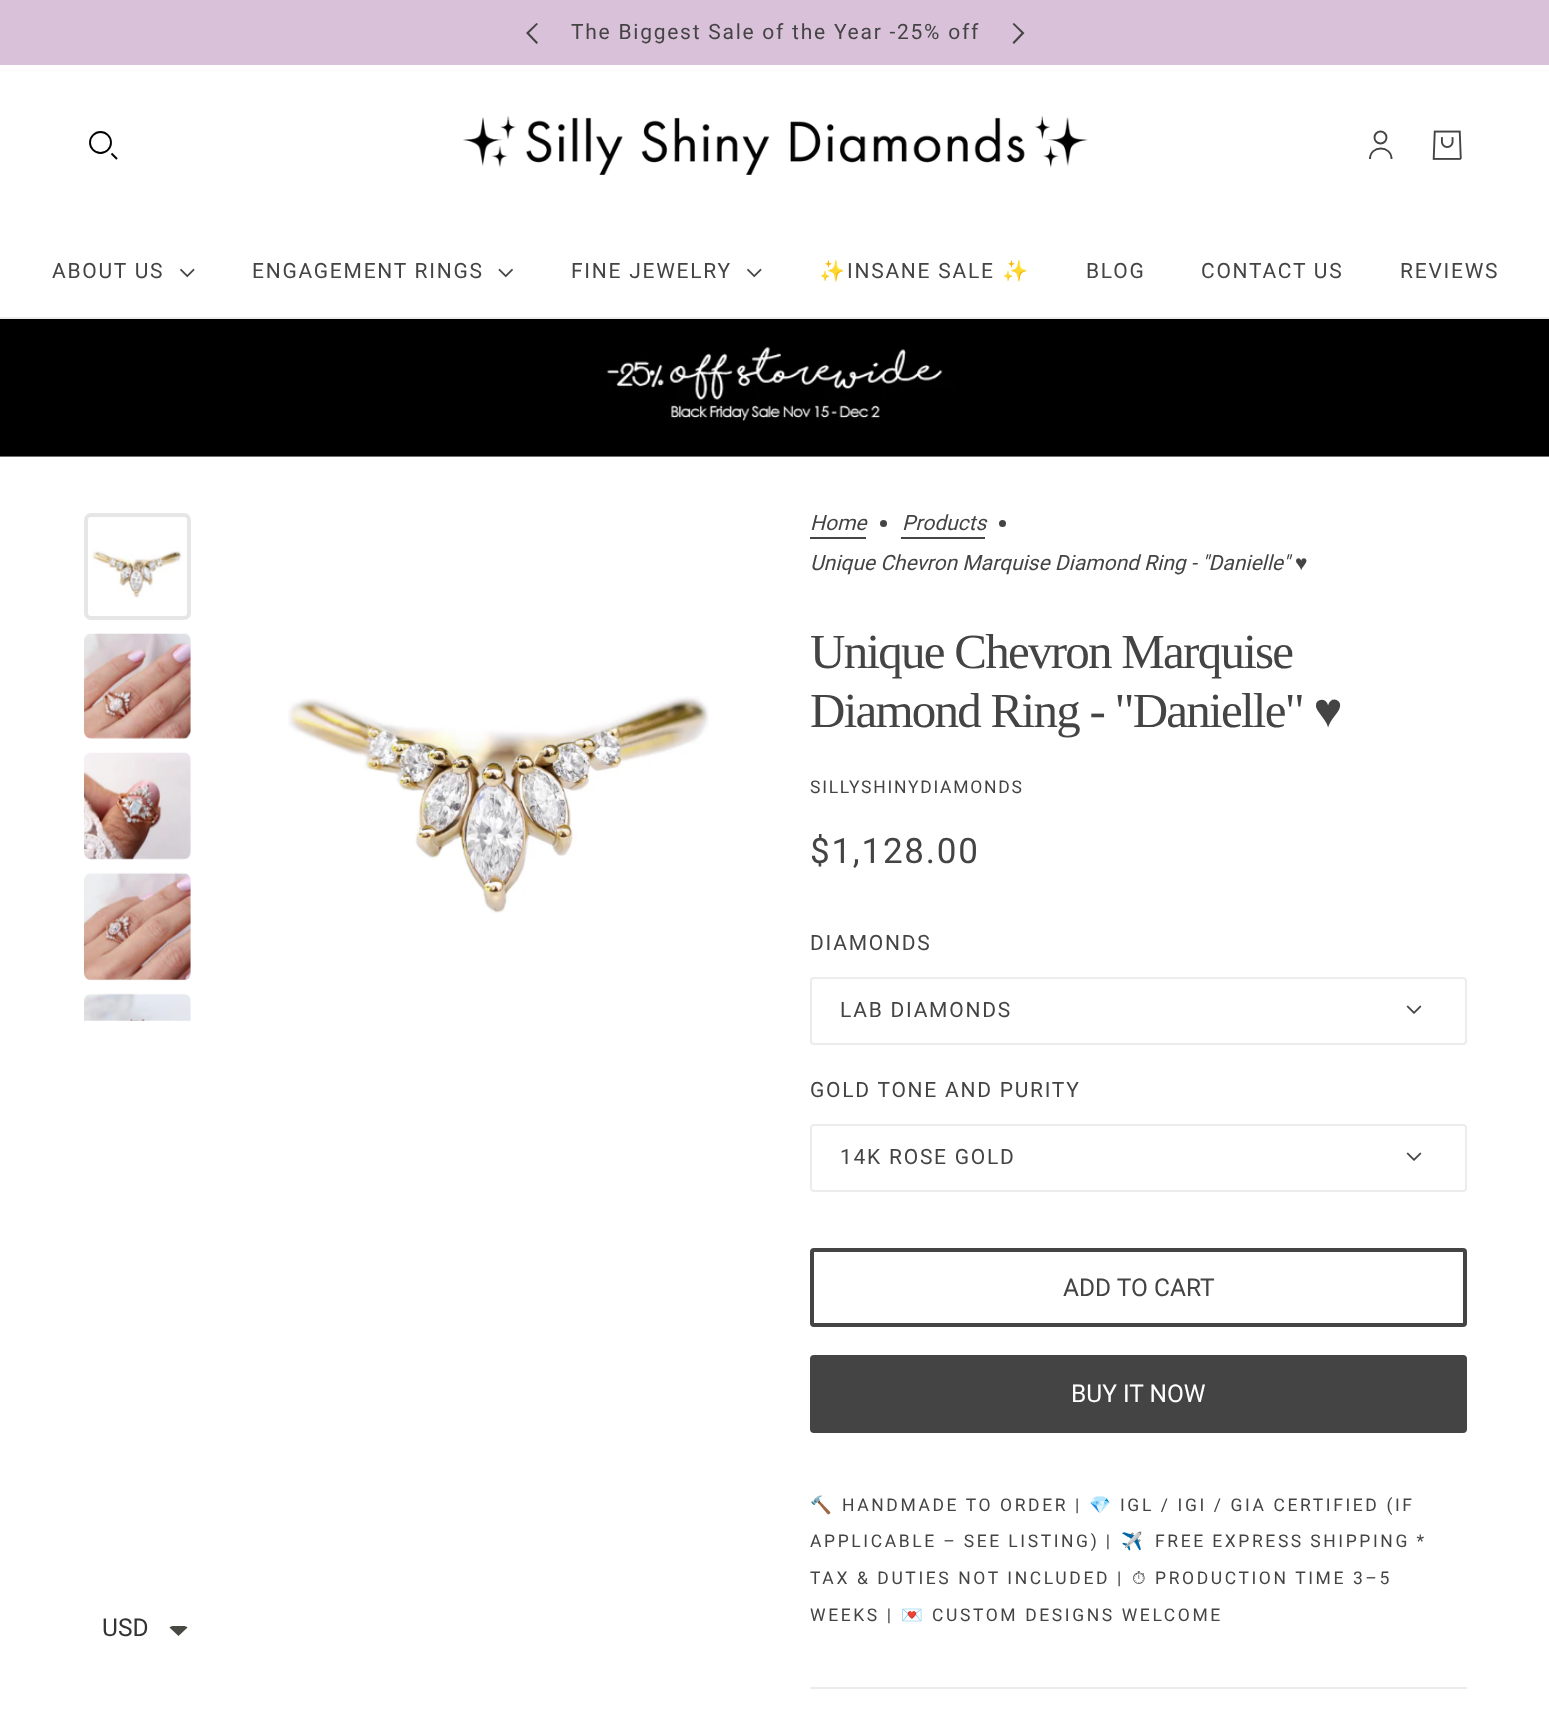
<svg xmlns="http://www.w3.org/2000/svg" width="1549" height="1731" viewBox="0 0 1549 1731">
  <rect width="100%" height="100%" fill="rgb(255,255,255)"/>
  <rect x="0" y="0" width="1549" height="65" fill="rgb(217,194,217)"/>
  <path d="M529 33L538 42.5L536.5 44L526 33L536.5 23L538 24Z" fill="rgb(68,68,68)"/>
  <text x="571" y="39" font-family="Roboto" font-size="21" letter-spacing="1.75" fill="rgb(68,68,68)">The Biggest Sale of the Year -25% off</text>
  <path d="M1021.5 33L1012.5 24L1014 23L1024.5 33L1014 44L1012.5 42.5Z" fill="rgb(68,68,68)"/>
  <circle cx="100.5" cy="142.5" r="10.5" fill="none" stroke="rgb(0,0,0)" stroke-width="1.9"/>
  <path d="M111.5 153.5L117 159" fill="none" stroke="rgb(0,0,0)" stroke-width="1.9"/>
  <image x="463" y="115" width="625" height="60" href="pic1.png"/>
  <circle cx="1380.5" cy="137.5" r="6" fill="none" stroke="rgb(68,68,68)" stroke-width="1.9"/>
  <path d="M1370 159C1370 145 1391.5 145 1391.5 159" fill="none" stroke="rgb(68,68,68)" stroke-width="1.9"/>
  <image x="1432" y="130" width="30" height="30" href="pic2.png"/>
  <text x="52" y="278" font-family="Roboto" font-size="21" letter-spacing="1.75" fill="rgb(68,68,68)">ABOUT US</text>
  <image x="179" y="268" width="16" height="10" href="pic3.png"/>
  <text x="252" y="278" font-family="Roboto" font-size="21" letter-spacing="1.75" fill="rgb(68,68,68)">ENGAGEMENT RINGS</text>
  <image x="498" y="268" width="16" height="10" href="pic4.png"/>
  <text x="571" y="278" font-family="Roboto" font-size="21" letter-spacing="1.75" fill="rgb(68,68,68)">FINE JEWELRY</text>
  <image x="746" y="268" width="16" height="10" href="pic3.png"/>
  <text x="819" y="278" font-family="Noto Color Emoji" font-size="21" letter-spacing="1.75" fill="rgb(68,68,68)">✨</text>
  <text x="847" y="278" font-family="Roboto" font-size="21" letter-spacing="1.75" fill="rgb(68,68,68)">INSANE SALE</text>
  <text x="1002" y="278" font-family="Noto Color Emoji" font-size="21" letter-spacing="1.75" fill="rgb(68,68,68)">✨</text>
  <g font-family="Roboto" font-size="21" letter-spacing="1.75" fill="rgb(68,68,68)">
    <text x="1086" y="278">BLOG</text>
    <text x="1201" y="278">CONTACT US</text>
    <text x="1400" y="278">REVIEWS</text>
  </g>
  <rect x="0" y="317" width="1549" height="2" fill="rgb(236,236,236)"/>
  <image x="0" y="319" width="1549" height="138" href="pic5.png"/>
  <image x="92" y="547" width="90" height="51" href="pic6.png"/>
  <rect x="86" y="515" width="103" height="103" rx="5" fill="none" stroke="rgb(230,230,230)" stroke-width="4"/>
  <image x="84" y="633" width="107" height="106" href="pic7.png"/>
  <image x="84" y="752" width="107" height="108" href="pic8.png"/>
  <image x="84" y="872" width="107" height="109" href="pic9.png"/>
  <image x="84" y="993" width="107" height="28" href="pic10.png"/>
  <image x="288" y="696" width="421" height="217" href="pic11.png"/>
  <text x="810" y="530" font-family="Roboto" font-size="21" font-style="italic" fill="rgb(68,68,68)">Home</text>
  <rect x="810" y="537" width="56" height="2" fill="rgb(68,68,68)"/>
  <circle cx="883.5" cy="523.5" r="3.5" fill="rgb(68,68,68)"/>
  <text x="902" y="530" font-family="Roboto" font-size="21" font-style="italic" fill="rgb(68,68,68)">Products</text>
  <rect x="901" y="537" width="84" height="2" fill="rgb(68,68,68)"/>
  <circle cx="1002.5" cy="523.5" r="3.5" fill="rgb(68,68,68)"/>
  <text x="810" y="570" font-family="Roboto" font-size="21" font-style="italic" fill="rgb(68,68,68)">Unique Chevron Marquise Diamond Ring - "Danielle"</text>
  <text x="1295" y="570" font-family="Liberation Sans" font-size="21" font-style="italic" fill="rgb(68,68,68)">♥</text>
  <g font-family="Liberation Serif" font-size="49" letter-spacing="-1.75" fill="rgb(68,68,68)">
    <text>
      <tspan x="810" y="668">Unique Chevron Marquise</tspan>
      <tspan x="810" y="727">Diamond Ring - "Danielle" ♥</tspan>
    </text>
  </g>
  <text x="810" y="793" font-family="Roboto" font-size="17.5" letter-spacing="1.75" fill="rgb(68,68,68)">SILLYSHINYDIAMONDS</text>
  <text x="810" y="863" font-family="Roboto" font-size="35" letter-spacing="1.75" fill="rgb(68,68,68)">$1,128.00</text>
  <text x="810" y="950" font-family="Roboto" font-size="21" letter-spacing="1.75" fill="rgb(68,68,68)">DIAMONDS</text>
  <rect x="811" y="978" width="655" height="66" rx="3" fill="none" stroke="rgb(236,236,236)" stroke-width="2"/>
  <text x="840" y="1017" font-family="Roboto" font-size="21" letter-spacing="1.75" fill="rgb(68,68,68)">LAB DIAMONDS</text>
  <image x="1406" y="1005" width="16" height="9" href="pic12.png"/>
  <text x="810" y="1097" font-family="Roboto" font-size="21" letter-spacing="1.75" fill="rgb(68,68,68)">GOLD TONE AND PURITY</text>
  <rect x="811" y="1125" width="655" height="66" rx="3" fill="none" stroke="rgb(236,236,236)" stroke-width="2"/>
  <text x="840" y="1164" font-family="Roboto" font-size="21" letter-spacing="1.75" fill="rgb(68,68,68)">14K ROSE GOLD</text>
  <image x="1406" y="1152" width="16" height="9" href="pic12.png"/>
  <rect x="812" y="1250" width="653" height="75" rx="2" fill="none" stroke="rgb(68,68,68)" stroke-width="4"/>
  <text x="1063" y="1296" font-family="Roboto" font-size="24.5" fill="rgb(68,68,68)">ADD TO CART</text>
  <rect x="812" y="1357" width="653" height="74" rx="2" fill="rgb(68,68,68)" stroke="rgb(68,68,68)" stroke-width="4"/>
  <text x="1071" y="1402" font-family="Roboto" font-size="24.5" fill="rgb(255,255,255)">BUY IT NOW</text>
  <text x="810" y="1511" font-family="Noto Color Emoji" font-size="17.5" letter-spacing="2.6" fill="rgb(68,68,68)">🔨</text>
  <text x="842" y="1511" font-family="Roboto" font-size="17.5" letter-spacing="2.6" fill="rgb(68,68,68)">HANDMADE TO ORDER |</text>
  <text x="1089" y="1511" font-family="Noto Color Emoji" font-size="17.5" letter-spacing="2.6" fill="rgb(68,68,68)">💎</text>
  <g font-family="Roboto" font-size="17.5" letter-spacing="2.6" fill="rgb(68,68,68)">
    <text x="1120" y="1511">IGL / IGI / GIA CERTIFIED (IF</text>
    <text x="810" y="1547" word-spacing="-0.5">APPLICABLE – SEE LISTING) |</text>
  </g>
  <text x="1121" y="1547" font-family="Noto Color Emoji" font-size="17.5" letter-spacing="2.6" fill="rgb(68,68,68)">✈️</text>
  <g font-family="Roboto" font-size="17.5" letter-spacing="2.6" fill="rgb(68,68,68)">
    <text x="1155" y="1547" word-spacing="-0.5">FREE EXPRESS SHIPPING *</text>
    <text x="810" y="1584">TAX &amp; DUTIES NOT INCLUDED |</text>
  </g>
  <text x="1132" y="1584" font-family="FreeSerif" font-size="17.5" letter-spacing="2.6" fill="rgb(68,68,68)">⏱</text>
  <g font-family="Roboto" font-size="17.5" letter-spacing="2.6" fill="rgb(68,68,68)">
    <text x="1155" y="1584">PRODUCTION TIME 3–5</text>
    <text x="810" y="1621">WEEKS |</text>
  </g>
  <text x="901" y="1621" font-family="Noto Color Emoji" font-size="17.5" letter-spacing="2.6" fill="rgb(68,68,68)">💌</text>
  <text x="932" y="1621" font-family="Roboto" font-size="17.5" letter-spacing="2.6" fill="rgb(68,68,68)">CUSTOM DESIGNS WELCOME</text>
  <rect x="810" y="1687" width="657" height="2" fill="rgb(236,236,236)"/>
  <text x="102" y="1636" font-family="Roboto" font-size="24.5" fill="rgb(51,51,51)">USD</text>
  <path d="M173 1626H184C185 1626 186.5 1626.5 187.5 1627.5L178.5 1636L169.5 1627.5C170.5 1626.5 172 1626 173 1626Z" fill="rgb(71,73,66)"/>
</svg>
